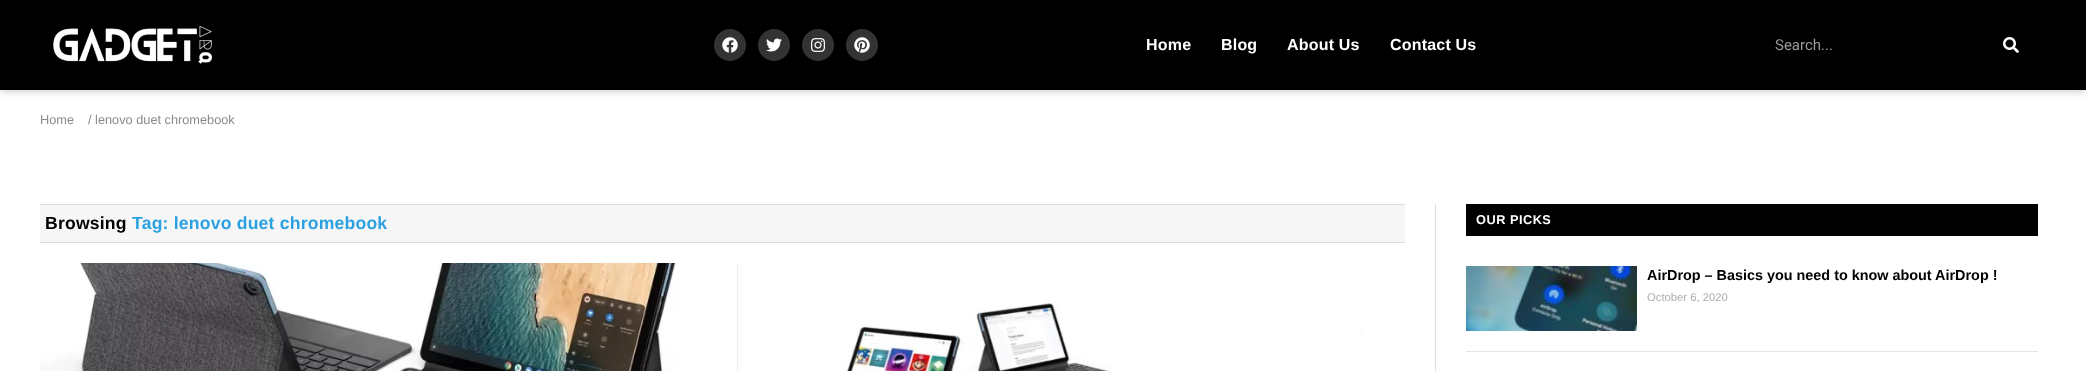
async function draw(canvas) {
  canvas.width = 2086
  canvas.height = 371
  const ctx = canvas.getContext('2d')
  ctx.miterLimit = 4
  ctx.fontKerning = 'normal'
  async function loadImage(src) {
    const img = new Image()
    img.src = src
    await img.decode()
    return img
  }

  ctx.fillStyle = '#fff'
  ctx.fillRect(0, 0, 2086, 371)
  ctx.fillStyle = '#77777780'
  ctx.filter = 'blur(5px)'
  ctx.beginPath()
  ctx.rect(0, 0, 2086, 90)
  ctx.fill()
  ctx.filter = 'none'
  ctx.fillStyle = '#000'
  ctx.fillRect(0, 0, 2086, 90)
  ctx.drawImage(await loadImage('image0.png'), 53, 25, 159, 39)
  ctx.fillStyle = '#333'
  ctx.beginPath()
  ctx.arc(730, 45, 16, 0, 2 * Math.PI)
  ctx.fill()
  ctx.drawImage(await loadImage('image1.png'), 722, 37, 16, 16)
  ctx.beginPath()
  ctx.arc(774, 45, 16, 0, 2 * Math.PI)
  ctx.fill()
  ctx.drawImage(await loadImage('image2.png'), 766, 38, 16, 14)
  ctx.beginPath()
  ctx.arc(818, 45, 16, 0, 2 * Math.PI)
  ctx.fill()
  ctx.drawImage(await loadImage('image3.png'), 811, 38, 14, 14)
  ctx.beginPath()
  ctx.arc(862, 45, 16, 0, 2 * Math.PI)
  ctx.fill()
  ctx.drawImage(await loadImage('image4.png'), 854, 37, 16, 16)
  ctx.letterSpacing = '0.2px'
  ctx.font = 'bold 16px Liberation Sans'
  ctx.fillStyle = '#fff'
  ctx.fillText('Home', 1146, 50)
  ctx.fillText('Blog', 1221, 50)
  ctx.fillText('About Us', 1287, 50)
  ctx.fillText('Contact Us', 1390, 50)
  ctx.letterSpacing = '0px'
  ctx.font = '15px Roboto'
  ctx.fillStyle = '#999'
  ctx.fillText('Search...', 1775, 50)
  ctx.drawImage(await loadImage('image5.png'), 2003, 37, 16, 16)
  ctx.font = '12.75px Liberation Sans'
  ctx.fillStyle = '#8a8a8a'
  ctx.fillText('Home', 40, 124)
  ctx.fillText('/ lenovo duet chromebook', 88, 124)
  ctx.fillStyle = '#ddd'
  ctx.fillRect(1435, 204, 1, 167)
  ctx.fillStyle = '#f6f6f6'
  ctx.fillRect(40, 205, 1365, 37)
  ctx.fillStyle = '#ddd'
  ctx.fillRect(40, 204, 1365, 1)
  ctx.fillRect(40, 242, 1365, 1)
  ctx.letterSpacing = '0.2px'
  ctx.font = 'bold 17.6px Liberation Sans'
  ctx.fillStyle = '#000'
  ctx.fillText('Browsing', 45, 229)
  ctx.fillStyle = '#2ba1e2'
  ctx.fillText('Tag: lenovo duet chromebook', 132, 229)
  ctx.drawImage(await loadImage('image6.png'), 40, 263, 636, 108)
  ctx.drawImage(await loadImage('image7.png'), 737, 263, 633, 108)
  ctx.fillStyle = '#000'
  ctx.fillRect(1466, 204, 572, 32)
  ctx.letterSpacing = '0.5px'
  ctx.font = 'bold 12.75px Liberation Sans'
  ctx.fillStyle = '#fff'
  ctx.fillText('OUR PICKS', 1476, 224)
  ctx.fillStyle = '#e6e6e6'
  ctx.fillRect(1466, 351, 572, 1)
  ctx.drawImage(await loadImage('image8.png'), 1466, 266, 171, 65)
  ctx.letterSpacing = '0px'
  ctx.font = 'bold 14.4px Liberation Sans'
  ctx.fillStyle = '#000'
  ctx.fillText('AirDrop – Basics you need to know about AirDrop !', 1647, 280)
  ctx.font = '11.25px Liberation Sans'
  ctx.fillStyle = '#adadad'
  ctx.fillText('October 6, 2020', 1647, 301)
}

draw(document.querySelector('canvas'))
